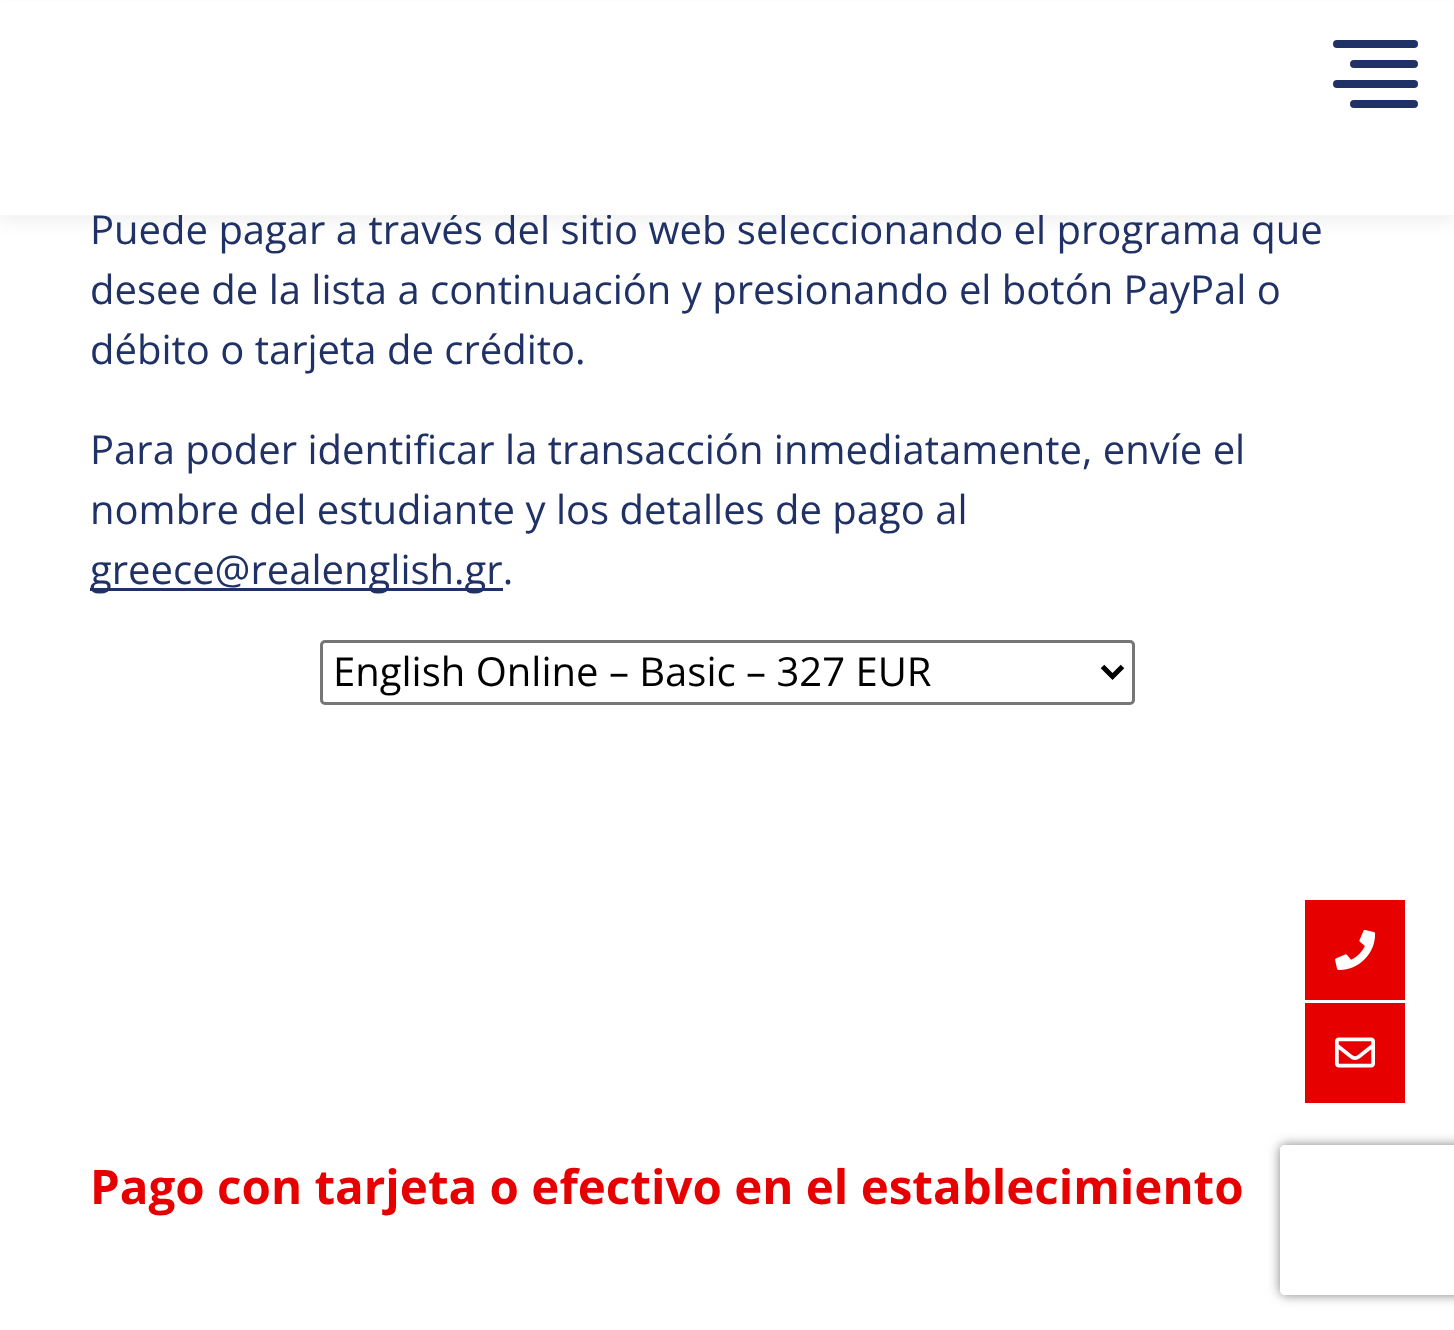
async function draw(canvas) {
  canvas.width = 1454
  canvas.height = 1330
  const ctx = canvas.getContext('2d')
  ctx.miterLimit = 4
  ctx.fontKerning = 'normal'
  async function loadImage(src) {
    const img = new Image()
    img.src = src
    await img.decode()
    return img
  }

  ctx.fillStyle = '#fff'
  ctx.fillRect(0, 0, 1454, 1330)
  ctx.fillStyle = '#0000000d'
  ctx.filter = 'blur(7.5px)'
  ctx.beginPath()
  ctx.rect(0, 8, 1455, 215)
  ctx.fill()
  ctx.filter = 'none'
  ctx.font = '40px Open Sans'
  ctx.fillStyle = '#1f3165'
  ctx.fillText('Puede pagar a través del sitio web seleccionando el programa que', 90, 244)
  ctx.fillStyle = '#fff'
  ctx.fillRect(0, 2, 1454, 213)
  ctx.fillStyle = '#1f3165'
  ctx.beginPath()
  ctx.roundRect(1333, 40, 85, 8, 4)
  ctx.fill()
  ctx.beginPath()
  ctx.roundRect(1350, 60, 68, 8, 4)
  ctx.fill()
  ctx.beginPath()
  ctx.roundRect(1333, 80, 85, 8, 4)
  ctx.fill()
  ctx.beginPath()
  ctx.roundRect(1350, 100, 68, 8, 4)
  ctx.fill()
  ctx.fillText('desee de la lista a continuación y presionando el botón PayPal o', 90, 304)
  ctx.fillText('débito o tarjeta de crédito.', 90, 364)
  ctx.fillText('Para poder identificar la transacción inmediatamente, envíe el', 90, 464)
  ctx.fillText('nombre del estudiante y los detalles de pago al', 90, 524)
  ctx.fillRect(90, 588, 413, 3)
  ctx.fillText('greece@realenglish.gr.', 90, 584)
  ctx.beginPath()
  ctx.roundRect(321.5, 641.5, 812, 62, 3.5)
  ctx.strokeStyle = '#767676'
  ctx.lineWidth = 3
  ctx.stroke()
  ctx.beginPath()
  ctx.moveTo(1102.5, 666.5)
  ctx.lineTo(1112.5, 676.5)
  ctx.lineTo(1122.5, 666.5)
  ctx.strokeStyle = '#000'
  ctx.lineWidth = 5
  ctx.stroke()
  ctx.fillStyle = '#000'
  ctx.fillText('English Online – Basic – 327 EUR', 333, 686)
  ctx.font = 'bold 47.5px Open Sans'
  ctx.fillStyle = '#e60000'
  ctx.fillText('Pago con tarjeta o efectivo en el establecimiento', 90, 1204)
  ctx.fillRect(1305, 900, 100, 100)
  ctx.drawImage(await loadImage('image0.png'), 1335, 930, 41, 40)
  ctx.fillRect(1305, 1003, 100, 100)
  ctx.drawImage(await loadImage('image1.png'), 1335, 1037, 40, 31)
  ctx.save()
  ctx.beginPath()
  ctx.moveTo(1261, 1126)
  ctx.lineTo(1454, 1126)
  ctx.lineTo(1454, 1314)
  ctx.lineTo(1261, 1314)
  ctx.closePath()
  ctx.moveTo(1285, 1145)
  ctx.lineTo(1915, 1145)
  ctx.bezierCurveTo(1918, 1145, 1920, 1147, 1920, 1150)
  ctx.lineTo(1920, 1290)
  ctx.bezierCurveTo(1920, 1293, 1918, 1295, 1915, 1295)
  ctx.lineTo(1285, 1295)
  ctx.bezierCurveTo(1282, 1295, 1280, 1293, 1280, 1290)
  ctx.lineTo(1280, 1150)
  ctx.bezierCurveTo(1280, 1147, 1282, 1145, 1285, 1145)
  ctx.closePath()
  ctx.clip('evenodd')
  ctx.fillStyle = '#808080'
  ctx.filter = 'blur(6px)'
  ctx.beginPath()
  ctx.roundRect(1280, 1145, 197, 150, 5)
  ctx.fill()
  ctx.filter = 'none'
  ctx.restore()
}

draw(document.querySelector('canvas'))
